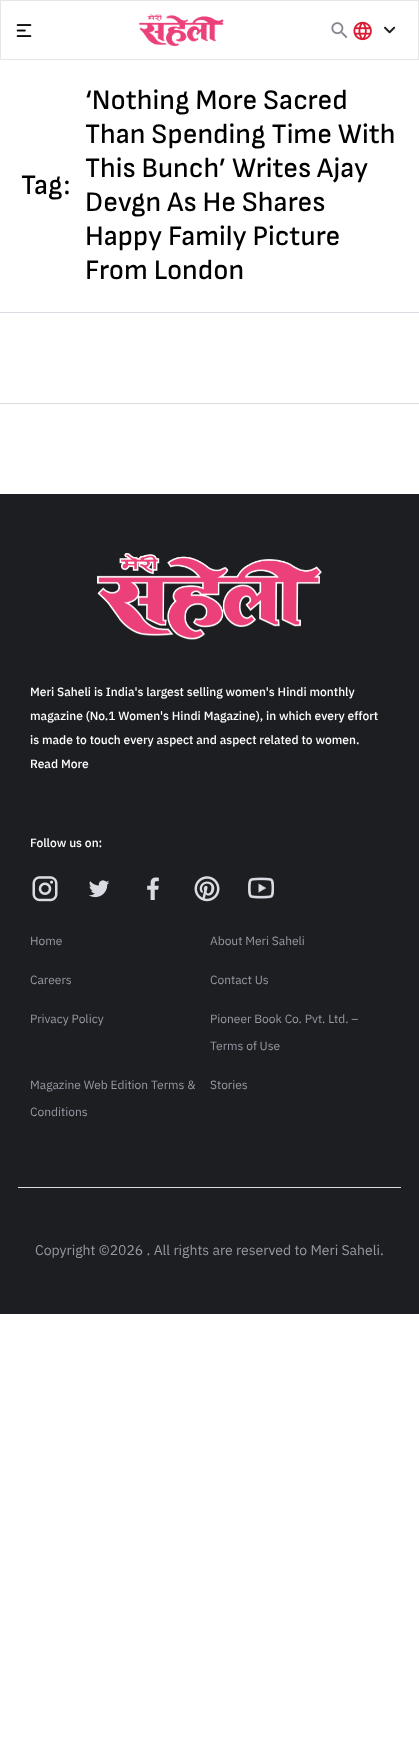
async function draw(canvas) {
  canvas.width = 419
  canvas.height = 1755
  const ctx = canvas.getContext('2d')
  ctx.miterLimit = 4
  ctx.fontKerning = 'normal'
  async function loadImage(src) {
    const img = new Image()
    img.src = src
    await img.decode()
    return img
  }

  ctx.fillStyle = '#fff'
  ctx.fillRect(0, 0, 419, 1755)
  ctx.strokeStyle = '#e6e6e6'
  ctx.strokeRect(0.5, 0.5, 418, 59)
  ctx.drawImage(await loadImage('image0.png'), 16, 24, 16, 13)
  ctx.drawImage(await loadImage('image1.png'), 138, 14, 86, 33)
  ctx.drawImage(await loadImage('image2.png'), 331, 22, 17, 17)
  ctx.drawImage(await loadImage('image3.png'), 353, 21, 19, 20)
  ctx.drawImage(await loadImage('image4.png'), 384, 26, 12, 8)
  ctx.fillStyle = '#dbdbe3'
  ctx.fillRect(0, 312, 419, 1)
  ctx.font = '500 28.25px Sofia Sans'
  ctx.fillStyle = '#000'
  ctx.fillText('Tag:', 21, 194)
  ctx.fillText('‘Nothing More Sacred', 85, 109)
  ctx.fillText('Than Spending Time With', 85, 143)
  ctx.fillText('This Bunch’ Writes Ajay', 85, 177)
  ctx.fillText('Devgn As He Shares', 85, 211)
  ctx.fillText('Happy Family Picture', 85, 245)
  ctx.fillText('From London', 85, 279)
  ctx.fillStyle = '#dbdbe3'
  ctx.fillRect(0, 403, 419, 1)
  ctx.fillStyle = '#1d1e22'
  ctx.fillRect(0, 494, 419, 820)
  ctx.fillStyle = '#dbdbe3'
  ctx.fillRect(18, 1187, 383, 1)
  ctx.drawImage(await loadImage('image5.png'), 97, 553, 225, 87)
  ctx.font = '500 12px IBM Plex Sans KR'
  ctx.fillStyle = '#fff'
  ctx.fillText('Meri Saheli is India\'s largest selling women\'s Hindi monthly', 30, 696)
  ctx.fillText('magazine (No.1 Women\'s Hindi Magazine), in which every effort', 30, 720)
  ctx.fillText('is made to touch every aspect and aspect related to women.', 30, 744)
  ctx.fillText('Read More', 30, 768)
  ctx.fillText('Follow us on:', 30, 847)
  ctx.drawImage(await loadImage('image6.png'), 32, 876, 26, 26)
  ctx.drawImage(await loadImage('image7.png'), 88, 880, 22, 18)
  ctx.drawImage(await loadImage('image8.png'), 147, 877, 12, 23)
  ctx.drawImage(await loadImage('image9.png'), 194, 876, 26, 26)
  ctx.drawImage(await loadImage('image10.png'), 248, 877, 26, 22)
  ctx.font = '12px IBM Plex Sans KR'
  ctx.fillStyle = '#9798a3'
  ctx.fillText('Home', 30, 945)
  ctx.fillText('About Meri Saheli', 210, 945)
  ctx.fillText('Careers', 30, 984)
  ctx.fillText('Contact Us', 210, 984)
  ctx.fillText('Privacy Policy', 30, 1023)
  ctx.fillText('Pioneer Book Co. Pvt. Ltd. –', 210, 1023)
  ctx.fillText('Terms of Use', 210, 1050)
  ctx.fillText('Magazine Web Edition Terms &', 30, 1089)
  ctx.fillText('Conditions', 30, 1116)
  ctx.fillText('Stories', 210, 1089)
  ctx.font = '14px IBM Plex Sans KR'
  ctx.fillText('Copyright ©2026 . All rights are reserved to Meri Saheli.', 35, 1255)
}

draw(document.querySelector('canvas'))
